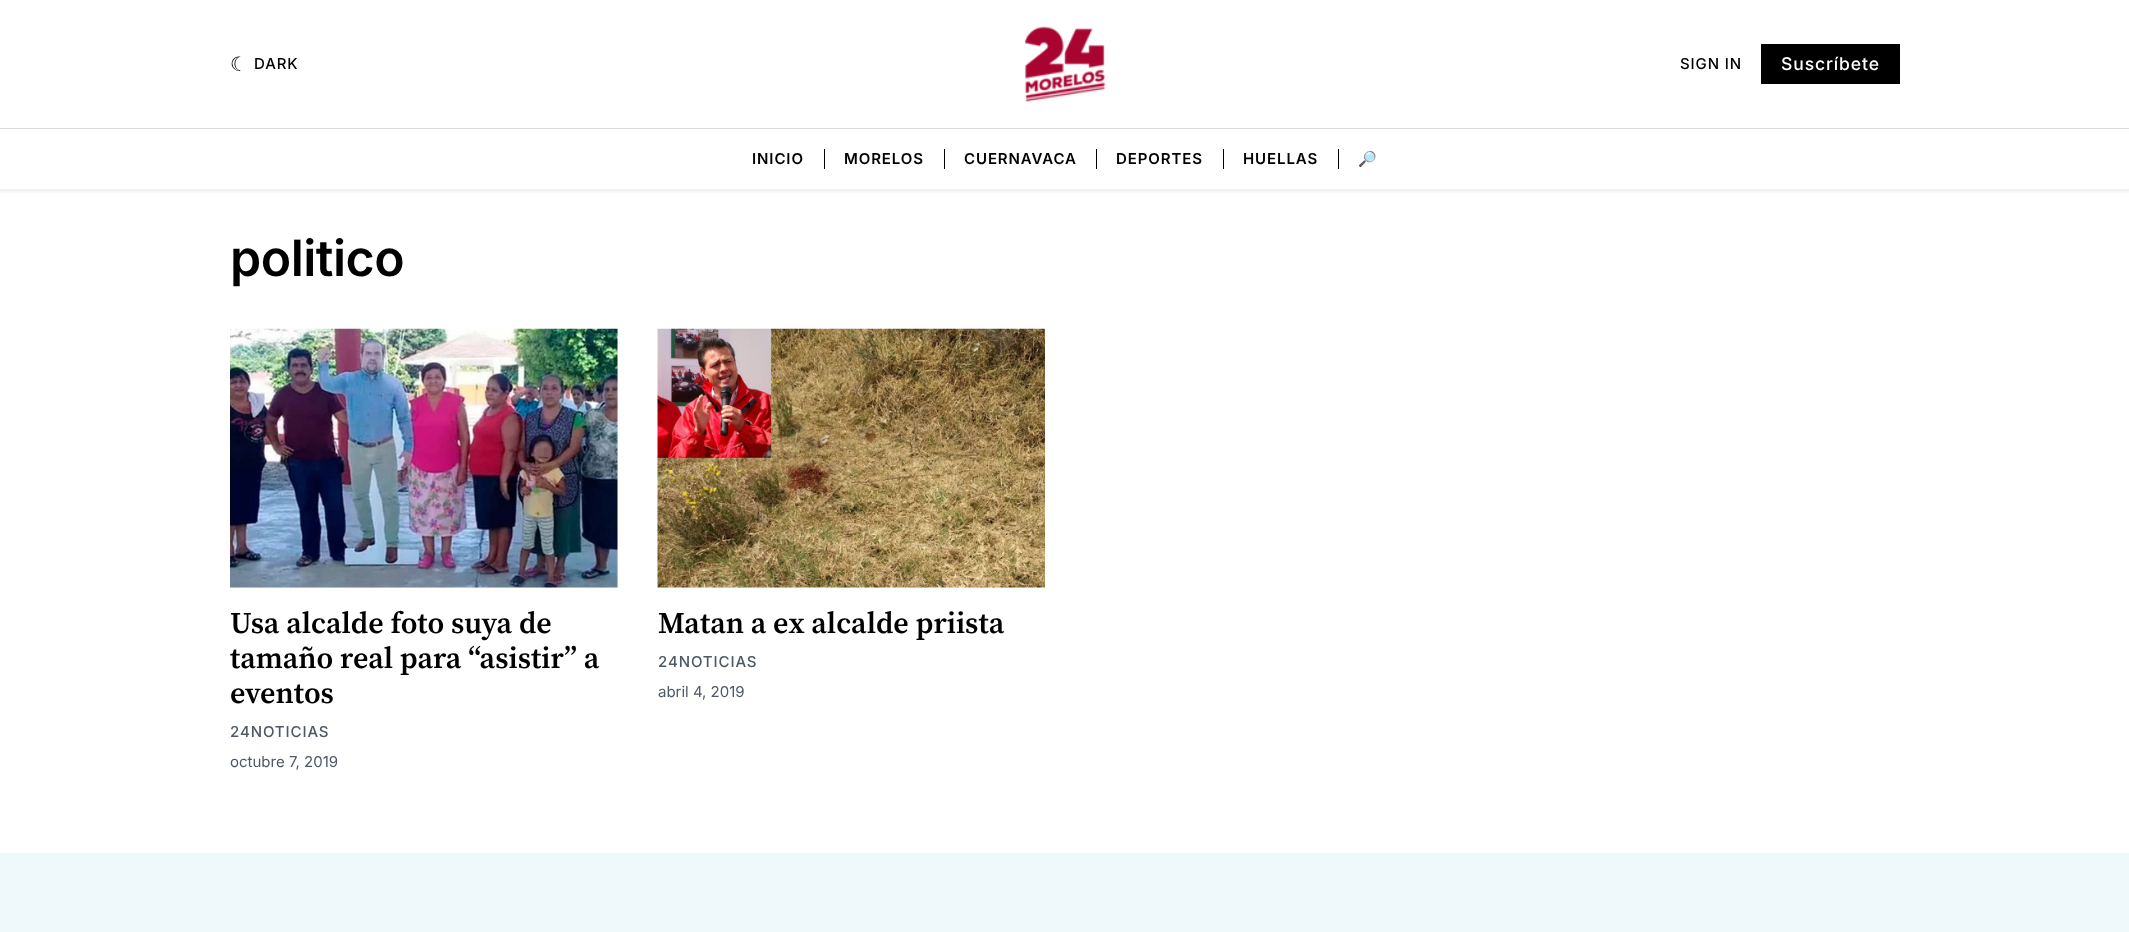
async function draw(canvas) {
  canvas.width = 2129
  canvas.height = 932
  const ctx = canvas.getContext('2d')
  ctx.miterLimit = 4
  ctx.fontKerning = 'normal'
  async function loadImage(src) {
    const img = new Image()
    img.src = src
    await img.decode()
    return img
  }

  ctx.fillStyle = '#fff'
  ctx.fillRect(0, 0, 2129, 932)
  ctx.save()
  ctx.beginPath()
  ctx.rect(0, 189, 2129, 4)
  ctx.clip()
  ctx.fillStyle = '#00000014'
  ctx.filter = 'blur(2.5px)'
  ctx.beginPath()
  ctx.rect(-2, -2, 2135, 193)
  ctx.fill()
  ctx.filter = 'none'
  ctx.restore()
  ctx.fillStyle = '#d9d9d9'
  ctx.fillRect(0, 128, 2129, 1)
  ctx.letterSpacing = '0.9px'
  ctx.font = '20px DejaVu Sans'
  ctx.fillStyle = '#000'
  ctx.fillText('☾', 230, 71)
  ctx.font = '500 15px Inter'
  ctx.fillText('DARK', 254, 69)
  ctx.drawImage(await loadImage('image0.png'), 1024, 26, 82, 76)
  ctx.fillText('SIGN IN', 1680, 69)
  ctx.fillRect(1761, 44, 139, 40)
  ctx.font = '500 17.5px Inter'
  ctx.fillStyle = '#fff'
  ctx.fillText('Suscríbete', 1781, 70)
  ctx.font = '600 15px Inter'
  ctx.fillStyle = '#000'
  ctx.fillText('INICIO', 752, 164)
  ctx.fillRect(824, 149, 1, 20)
  ctx.fillText('MORELOS', 844, 164)
  ctx.fillRect(944, 149, 1, 20)
  ctx.fillText('CUERNAVACA', 964, 164)
  ctx.fillRect(1096, 149, 1, 20)
  ctx.fillText('DEPORTES', 1116, 164)
  ctx.fillRect(1223, 149, 1, 20)
  ctx.fillText('HUELLAS', 1243, 164)
  ctx.fillRect(1338, 149, 1, 20)
  ctx.font = 'bold 15px Noto Color Emoji'
  ctx.fillText('🔎', 1358, 164)
  ctx.letterSpacing = '-0.5px'
  ctx.font = '600 50px Inter'
  ctx.fillText('politico', 230, 276)
  ctx.fillStyle = '#eff8fa'
  ctx.fillRect(230, 329, 388, 259)
  ctx.drawImage(await loadImage('image1.png'), 230, 328, 388, 260)
  ctx.letterSpacing = '0px'
  ctx.font = '600 30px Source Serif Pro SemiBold'
  ctx.fillStyle = '#000'
  ctx.fillText('Usa alcalde foto suya de', 230, 633)
  ctx.fillText('tamaño real para “asistir” a', 230, 668)
  ctx.fillText('eventos', 230, 703)
  ctx.letterSpacing = '0.9px'
  ctx.font = '500 15px Inter'
  ctx.fillStyle = '#4e5965'
  ctx.fillText('24NOTICIAS', 230, 737)
  ctx.letterSpacing = '0px'
  ctx.font = '15px Inter'
  ctx.fillText('octubre 7, 2019', 230, 767)
  ctx.fillStyle = '#eff8fa'
  ctx.fillRect(658, 587, 387, 1)
  ctx.drawImage(await loadImage('image2.png'), 657, 328, 388, 260)
  ctx.font = '600 30px Source Serif Pro SemiBold'
  ctx.fillStyle = '#000'
  ctx.fillText('Matan a ex alcalde priista', 658, 633)
  ctx.letterSpacing = '0.9px'
  ctx.font = '500 15px Inter'
  ctx.fillStyle = '#4e5965'
  ctx.fillText('24NOTICIAS', 658, 667)
  ctx.letterSpacing = '0px'
  ctx.font = '15px Inter'
  ctx.fillText('abril 4, 2019', 658, 697)
  ctx.fillStyle = '#eff8fa'
  ctx.fillRect(0, 853, 2129, 79)
}

draw(document.querySelector('canvas'))
